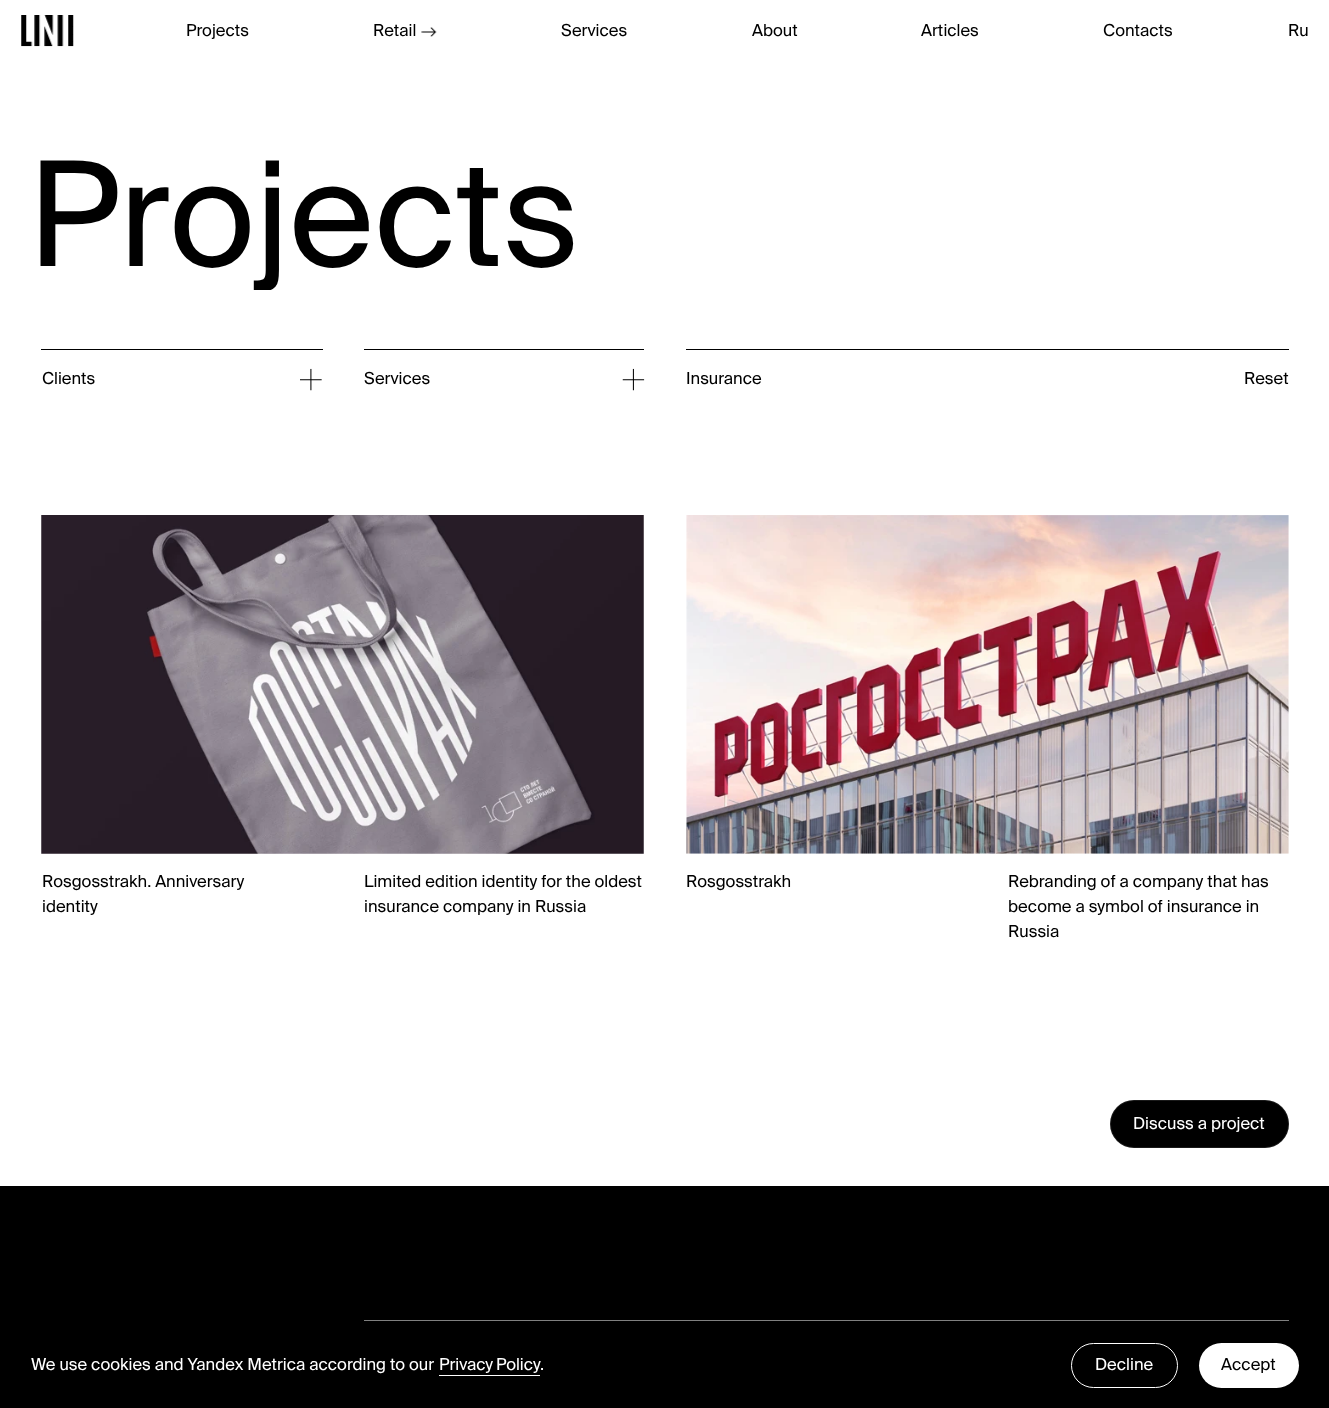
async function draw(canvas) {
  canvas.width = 1329
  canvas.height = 1408
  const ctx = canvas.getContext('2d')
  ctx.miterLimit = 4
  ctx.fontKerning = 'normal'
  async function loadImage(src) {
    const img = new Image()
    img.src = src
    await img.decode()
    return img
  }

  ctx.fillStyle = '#000'
  ctx.fillRect(0, 0, 1329, 1408)
  ctx.fillStyle = '#fff'
  ctx.fillRect(0, 0, 1329, 1186)
  ctx.drawImage(await loadImage('image0.png'), 21, 15, 53, 32)
  ctx.font = '16.6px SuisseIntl'
  ctx.fillStyle = '#000'
  ctx.fillText('Projects', 186, 36)
  ctx.fillText('Retail', 373, 36)
  ctx.drawImage(await loadImage('image1.png'), 421, 27, 16, 10)
  ctx.fillText('Services', 561, 36)
  ctx.fillText('About', 752, 36)
  ctx.fillText('Articles', 921, 36)
  ctx.fillText('Contacts', 1103, 36)
  ctx.fillText('Ru', 1288, 36)
  ctx.save()
  ctx.beginPath()
  ctx.rect(28, 145, 1261, 145)
  ctx.clip()
  ctx.font = '145.5px SuisseIntl'
  ctx.fillText('Projects', 28, 266)
  ctx.restore()
  ctx.fillRect(41, 349, 282, 1)
  ctx.fillText('Clients', 42, 384)
  ctx.drawImage(await loadImage('image2.png'), 300, 368, 22, 23)
  ctx.fillRect(364, 349, 280, 1)
  ctx.fillText('Services', 364, 384)
  ctx.drawImage(await loadImage('image3.png'), 622, 368, 23, 23)
  ctx.fillRect(686, 349, 603, 1)
  ctx.fillText('Insurance', 686, 384)
  ctx.fillText('Reset', 1244, 384)
  ctx.drawImage(await loadImage('image4.png'), 41, 515, 603, 339)
  ctx.fillText('Rosgosstrakh. Anniversary', 42, 887)
  ctx.fillText('identity', 42, 912)
  ctx.fillText('Limited edition identity for the oldest', 364, 887)
  ctx.fillText('insurance company in Russia', 364, 912)
  ctx.drawImage(await loadImage('image5.png'), 686, 515, 603, 339)
  ctx.fillText('Rosgosstrakh', 686, 887)
  ctx.fillText('Rebranding of a company that has', 1008, 887)
  ctx.fillText('become a symbol of insurance in', 1008, 912)
  ctx.fillText('Russia', 1008, 937)
  ctx.beginPath()
  ctx.roundRect(1110, 1100, 179, 48, 24)
  ctx.fill()
  ctx.beginPath()
  ctx.roundRect(1110.5, 1100.5, 178, 47, 23.5)
  ctx.strokeStyle = '#ffffff1a'
  ctx.stroke()
  ctx.fillStyle = '#fff'
  ctx.fillText('Discuss a project', 1133, 1129)
  ctx.fillStyle = '#808080'
  ctx.fillRect(364, 1320, 925, 1)
  ctx.fillStyle = '#fff'
  ctx.fillText('We use cookies and Yandex Metrica according to our', 31, 1370)
  ctx.wordSpacing = '-1px'
  ctx.fillText('Privacy Policy', 439, 1370)
  ctx.fillRect(439, 1375, 101, 1)
  ctx.wordSpacing = '0px'
  ctx.fillText('.', 540, 1370)
  ctx.beginPath()
  ctx.roundRect(1071.5, 1343.5, 106, 44, 22)
  ctx.strokeStyle = '#fff'
  ctx.stroke()
  ctx.fillText('Decline', 1095, 1370)
  ctx.beginPath()
  ctx.roundRect(1199, 1343, 100, 45, 22.5)
  ctx.fill()
  ctx.fillStyle = '#000'
  ctx.fillText('Accept', 1221, 1370)
}

draw(document.querySelector('canvas'))
